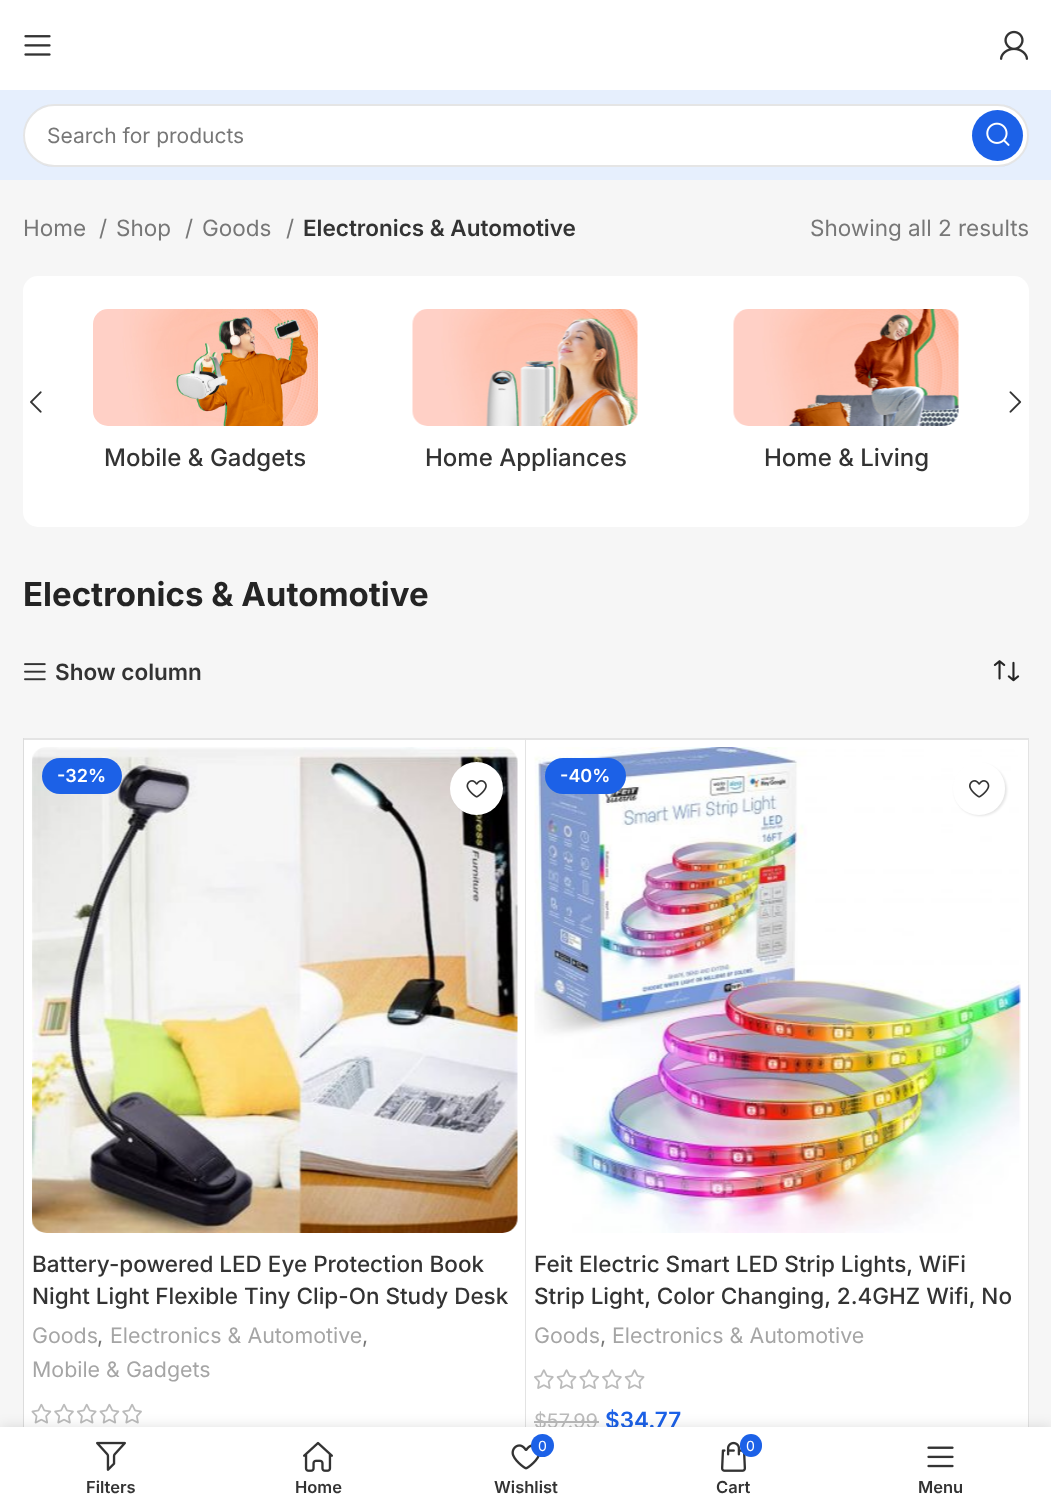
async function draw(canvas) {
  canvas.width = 1051
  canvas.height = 1508
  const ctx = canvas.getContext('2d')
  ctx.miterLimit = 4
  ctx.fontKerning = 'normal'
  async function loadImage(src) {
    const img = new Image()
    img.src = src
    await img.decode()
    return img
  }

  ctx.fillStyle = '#fff'
  ctx.fillRect(0, 0, 1051, 1508)
  ctx.drawImage(await loadImage('image0.png'), 24, 35, 27, 21)
  ctx.drawImage(await loadImage('image1.png'), 999, 30, 30, 30)
  ctx.fillStyle = '#e6effd'
  ctx.fillRect(0, 90, 1051, 90)
  ctx.fillStyle = '#fff'
  ctx.beginPath()
  ctx.roundRect(23, 104, 1006, 63, 31.5)
  ctx.fill()
  ctx.beginPath()
  ctx.roundRect(24, 105, 1004, 61, 30.5)
  ctx.strokeStyle = '#0000001a'
  ctx.lineWidth = 2
  ctx.stroke()
  ctx.font = '21px Inter'
  ctx.fillStyle = '#777'
  ctx.fillText('Search for products', 47, 143)
  ctx.fillStyle = '#1c61e7'
  ctx.beginPath()
  ctx.arc(997.5, 135.5, 25.5, 0, 2 * Math.PI)
  ctx.fill()
  ctx.drawImage(await loadImage('image2.png'), 986, 122, 24, 24)
  ctx.fillStyle = '#f6f6f6'
  ctx.fillRect(0, 180, 1051, 1247)
  ctx.font = '22.5px Inter'
  ctx.fillStyle = '#777'
  ctx.fillText('Home', 23, 236)
  ctx.fillText('/', 99, 236)
  ctx.fillText('Shop', 116, 236)
  ctx.fillText('/', 185, 236)
  ctx.fillText('Goods', 202, 236)
  ctx.fillText('/', 286, 236)
  ctx.font = '600 22.5px Inter'
  ctx.fillStyle = '#333'
  ctx.fillText('Electronics & Automotive', 303, 236)
  ctx.font = '22.5px Inter'
  ctx.fillStyle = '#777'
  ctx.fillText('Showing all 2 results', 810, 236)
  ctx.fillStyle = '#fff'
  ctx.beginPath()
  ctx.roundRect(23, 276, 1006, 251, 15)
  ctx.fill()
  ctx.drawImage(await loadImage('image3.png'), 30, 391, 12, 22)
  ctx.drawImage(await loadImage('image4.png'), 1009, 391, 13, 22)
  ctx.drawImage(await loadImage('image5.png'), 93, 309, 225, 117)
  ctx.font = '500 24px Inter'
  ctx.fillStyle = '#333'
  ctx.fillText('Mobile & Gadgets', 104, 466)
  ctx.drawImage(await loadImage('image6.png'), 412, 309, 226, 117)
  ctx.fillText('Home Appliances', 425, 466)
  ctx.drawImage(await loadImage('image7.png'), 733, 309, 226, 117)
  ctx.fillText('Home & Living', 764, 466)
  ctx.font = 'bold 33px Inter'
  ctx.fillStyle = '#242424'
  ctx.fillText('Electronics & Automotive', 23, 606)
  ctx.drawImage(await loadImage('image8.png'), 24, 663, 22, 18)
  ctx.font = '600 22.5px Inter'
  ctx.fillStyle = '#333'
  ctx.fillText('Show column', 55, 680)
  ctx.drawImage(await loadImage('image9.png'), 993, 660, 27, 22)
  ctx.fillStyle = '#dcdcdc'
  ctx.fillRect(23, 738, 1, 689)
  ctx.fillStyle = '#fff'
  ctx.fillRect(24, 738, 1005, 689)
  ctx.fillStyle = '#e4e4e4'
  ctx.beginPath()
  ctx.moveTo(24, 738)
  ctx.lineTo(526, 738)
  ctx.lineTo(525, 740)
  ctx.lineTo(24, 740)
  ctx.closePath()
  ctx.fill()
  ctx.fillStyle = '#0000001c'
  ctx.beginPath()
  ctx.moveTo(526, 738)
  ctx.lineTo(526, 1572)
  ctx.lineTo(525, 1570)
  ctx.lineTo(525, 740)
  ctx.closePath()
  ctx.fill()
  ctx.drawImage(await loadImage('image10.png'), 32, 747, 486, 486)
  ctx.fillStyle = '#1c61e7'
  ctx.beginPath()
  ctx.roundRect(42, 758, 80, 36, 18)
  ctx.fill()
  ctx.font = '600 18px Inter'
  ctx.fillStyle = '#fff'
  ctx.fillText('-32%', 57, 782)
  ctx.fillStyle = '#0000001a'
  ctx.filter = 'blur(1px)'
  ctx.beginPath()
  ctx.roundRect(452, 764, 52, 52, 26)
  ctx.fill()
  ctx.filter = 'none'
  ctx.fillStyle = '#fff'
  ctx.beginPath()
  ctx.arc(476.5, 788.5, 26.5, 0, 2 * Math.PI)
  ctx.fill()
  ctx.drawImage(await loadImage('image11.png'), 466, 780, 21, 18)
  ctx.font = '500 22.5px Inter'
  ctx.fillStyle = '#333'
  ctx.fillText('Battery-powered LED Eye Protection Book', 32, 1272)
  ctx.fillText('Night Light Flexible Tiny Clip-On Study Desk', 32, 1304)
  ctx.font = '21.4px Inter'
  ctx.fillStyle = '#a5a5a5'
  ctx.fillText('Goods', 32, 1343)
  ctx.fillStyle = '#777'
  ctx.fillText(',', 97, 1343)
  ctx.fillStyle = '#a5a5a5'
  ctx.fillText('Electronics & Automotive', 110, 1343)
  ctx.fillStyle = '#777'
  ctx.fillText(',', 362, 1343)
  ctx.fillStyle = '#a5a5a5'
  ctx.fillText('Mobile & Gadgets', 32, 1377)
  ctx.drawImage(await loadImage('image12.png'), 31, 1403, 111, 21)
  ctx.fillStyle = '#e4e4e4'
  ctx.beginPath()
  ctx.moveTo(526, 738)
  ctx.lineTo(1029, 738)
  ctx.lineTo(1028, 740)
  ctx.lineTo(526, 740)
  ctx.closePath()
  ctx.fill()
  ctx.fillStyle = '#0000001c'
  ctx.beginPath()
  ctx.moveTo(1029, 738)
  ctx.lineTo(1029, 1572)
  ctx.lineTo(1028, 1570)
  ctx.lineTo(1028, 740)
  ctx.closePath()
  ctx.fill()
  ctx.drawImage(await loadImage('image13.png'), 534, 747, 487, 486)
  ctx.fillStyle = '#1c61e7'
  ctx.beginPath()
  ctx.roundRect(545, 758, 81, 36, 18)
  ctx.fill()
  ctx.font = '600 18px Inter'
  ctx.fillStyle = '#fff'
  ctx.fillText('-40%', 560, 782)
  ctx.fillStyle = '#0000001a'
  ctx.filter = 'blur(1px)'
  ctx.beginPath()
  ctx.roundRect(954, 764, 53, 52, 26)
  ctx.fill()
  ctx.filter = 'none'
  ctx.fillStyle = '#fff'
  ctx.beginPath()
  ctx.roundRect(953, 762, 52, 53, 26)
  ctx.fill()
  ctx.drawImage(await loadImage('image14.png'), 969, 780, 21, 18)
  ctx.font = '500 22.5px Inter'
  ctx.fillStyle = '#333'
  ctx.fillText('Feit Electric Smart LED Strip Lights, WiFi', 534, 1272)
  ctx.fillText('Strip Light, Color Changing, 2.4GHZ Wifi, No', 534, 1304)
  ctx.font = '21.4px Inter'
  ctx.fillStyle = '#a5a5a5'
  ctx.fillText('Goods', 534, 1343)
  ctx.fillStyle = '#777'
  ctx.fillText(',', 600, 1343)
  ctx.fillStyle = '#a5a5a5'
  ctx.fillText('Electronics & Automotive', 612, 1343)
  ctx.drawImage(await loadImage('image15.png'), 534, 1369, 111, 20)
  ctx.font = '20px Inter'
  ctx.fillStyle = '#bbb'
  ctx.fillText('$57.99', 534, 1428)
  ctx.fillRect(534, 1421, 65, 2)
  ctx.font = '600 22.5px Inter'
  ctx.fillStyle = '#1c61e7'
  ctx.fillText('$34.77', 605, 1428)
  ctx.fillStyle = '#0000001f'
  ctx.filter = 'blur(7px)'
  ctx.beginPath()
  ctx.rect(0, 1427, 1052, 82)
  ctx.fill()
  ctx.filter = 'none'
  ctx.fillStyle = '#fff'
  ctx.fillRect(0, 1427, 1051, 81)
  ctx.drawImage(await loadImage('image16.png'), 96, 1441, 30, 30)
  ctx.font = '600 16.5px Inter'
  ctx.fillStyle = '#333'
  ctx.fillText('Filters', 86, 1493)
  ctx.drawImage(await loadImage('image17.png'), 303, 1441, 30, 31)
  ctx.fillText('Home', 295, 1493)
  ctx.drawImage(await loadImage('image18.png'), 511, 1444, 29, 26)
  ctx.fillStyle = '#1c61e7'
  ctx.beginPath()
  ctx.arc(542.5, 1445.5, 11.5, 0, 2 * Math.PI)
  ctx.fill()
  ctx.font = '14px Inter'
  ctx.fillStyle = '#fff'
  ctx.fillText('0', 538, 1451)
  ctx.font = '600 16.5px Inter'
  ctx.fillStyle = '#333'
  ctx.fillText('Wishlist', 494, 1493)
  ctx.drawImage(await loadImage('image19.png'), 721, 1441, 25, 31)
  ctx.fillStyle = '#1c61e7'
  ctx.beginPath()
  ctx.roundRect(740, 1434, 22, 23, 11)
  ctx.fill()
  ctx.font = '14px Inter'
  ctx.fillStyle = '#fff'
  ctx.fillText('0', 746, 1451)
  ctx.font = '600 16.5px Inter'
  ctx.fillStyle = '#333'
  ctx.fillText('Cart', 716, 1493)
  ctx.drawImage(await loadImage('image20.png'), 927, 1446, 27, 22)
  ctx.fillText('Menu', 918, 1493)
}

draw(document.querySelector('canvas'))
